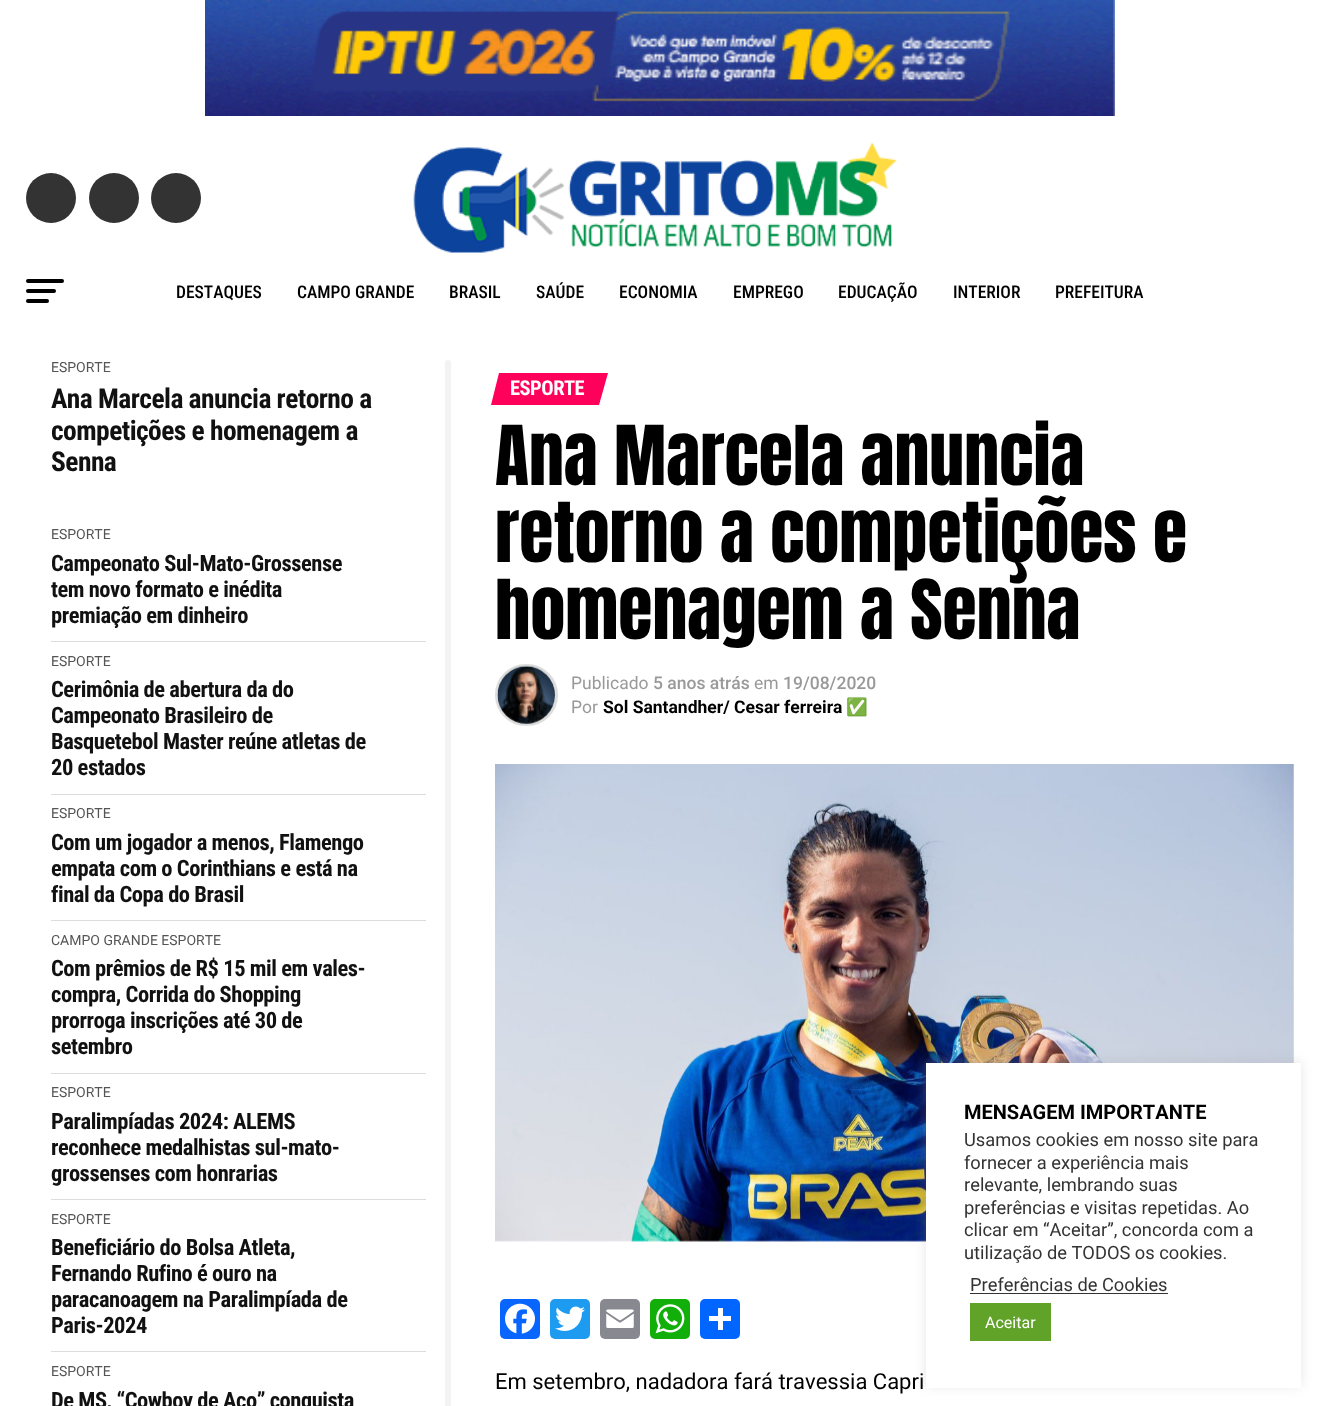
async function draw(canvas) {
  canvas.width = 1320
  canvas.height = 1406
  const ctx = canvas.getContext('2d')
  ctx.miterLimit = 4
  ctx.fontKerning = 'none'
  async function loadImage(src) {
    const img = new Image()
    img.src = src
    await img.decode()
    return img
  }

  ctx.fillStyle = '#fff'
  ctx.fillRect(0, 0, 1320, 1406)
  ctx.drawImage(await loadImage('image0.png'), 205, 0, 910, 116)
  ctx.fillStyle = '#333'
  ctx.beginPath()
  ctx.arc(51, 198, 25, 0, 2 * Math.PI)
  ctx.fill()
  ctx.beginPath()
  ctx.arc(114, 198, 25, 0, 2 * Math.PI)
  ctx.fill()
  ctx.beginPath()
  ctx.arc(176, 198, 25, 0, 2 * Math.PI)
  ctx.fill()
  ctx.drawImage(await loadImage('image1.png'), 413, 142, 484, 111)
  ctx.fillStyle = '#000'
  ctx.beginPath()
  ctx.roundRect(26, 279, 38, 4, 2)
  ctx.fill()
  ctx.beginPath()
  ctx.roundRect(26, 289, 30, 4, 2)
  ctx.fill()
  ctx.beginPath()
  ctx.roundRect(26, 299, 23, 4, 2)
  ctx.fill()
  ctx.font = '500 17.5px Roboto Condensed'
  ctx.fillText('DESTAQUES', 176, 298)
  ctx.fillText('CAMPO GRANDE', 297, 298)
  ctx.fillText('BRASIL', 449, 298)
  ctx.fillText('SAÚDE', 536, 298)
  ctx.fillText('ECONOMIA', 619, 298)
  ctx.fillText('EMPREGO', 733, 298)
  ctx.fillText('EDUCAÇÃO', 838, 298)
  ctx.fillText('INTERIOR', 953, 298)
  ctx.fillText('PREFEITURA', 1055, 298)
  ctx.font = '14px Roboto'
  ctx.fillStyle = '#555'
  ctx.fillText('ESPORTE', 51, 372)
  ctx.letterSpacing = '-0.55px'
  ctx.font = 'bold 27.5px Roboto Condensed'
  ctx.fillStyle = '#111'
  ctx.fillText('Ana Marcela anuncia retorno a', 51, 408)
  ctx.fillText('competições e homenagem a', 51, 440)
  ctx.fillText('Senna', 51, 471)
  ctx.fillStyle = '#ddd'
  ctx.fillRect(51, 641, 375, 1)
  ctx.letterSpacing = '0px'
  ctx.font = '14px Roboto'
  ctx.fillStyle = '#555'
  ctx.fillText('ESPORTE', 51, 539)
  ctx.letterSpacing = '-0.45px'
  ctx.font = 'bold 22.5px Roboto Condensed'
  ctx.fillStyle = '#111'
  ctx.fillText('Campeonato Sul-Mato-Grossense', 51, 571)
  ctx.fillText('tem novo formato e inédita', 51, 597)
  ctx.fillText('premiação em dinheiro', 51, 623)
  ctx.fillStyle = '#ddd'
  ctx.fillRect(51, 794, 375, 1)
  ctx.letterSpacing = '0px'
  ctx.font = '14px Roboto'
  ctx.fillStyle = '#555'
  ctx.fillText('ESPORTE', 51, 666)
  ctx.letterSpacing = '-0.45px'
  ctx.font = 'bold 22.5px Roboto Condensed'
  ctx.fillStyle = '#111'
  ctx.fillText('Cerimônia de abertura da do', 51, 697)
  ctx.fillText('Campeonato Brasileiro de', 51, 723)
  ctx.fillText('Basquetebol Master reúne atletas de', 51, 749)
  ctx.fillText('20 estados', 51, 775)
  ctx.fillStyle = '#ddd'
  ctx.fillRect(51, 920, 375, 1)
  ctx.letterSpacing = '0px'
  ctx.font = '14px Roboto'
  ctx.fillStyle = '#555'
  ctx.fillText('ESPORTE', 51, 818)
  ctx.letterSpacing = '-0.45px'
  ctx.font = 'bold 22.5px Roboto Condensed'
  ctx.fillStyle = '#111'
  ctx.fillText('Com um jogador a menos, Flamengo', 51, 850)
  ctx.fillText('empata com o Corinthians e está na', 51, 876)
  ctx.fillText('final da Copa do Brasil', 51, 902)
  ctx.fillStyle = '#ddd'
  ctx.fillRect(51, 1073, 375, 1)
  ctx.letterSpacing = '0px'
  ctx.font = '14px Roboto'
  ctx.fillStyle = '#555'
  ctx.fillText('CAMPO GRANDE ESPORTE', 51, 945)
  ctx.letterSpacing = '-0.45px'
  ctx.font = 'bold 22.5px Roboto Condensed'
  ctx.fillStyle = '#111'
  ctx.fillText('Com prêmios de R$ 15 mil em vales-', 51, 976)
  ctx.fillText('compra, Corrida do Shopping', 51, 1002)
  ctx.fillText('prorroga inscrições até 30 de', 51, 1028)
  ctx.fillText('setembro', 51, 1054)
  ctx.fillStyle = '#ddd'
  ctx.fillRect(51, 1199, 375, 1)
  ctx.letterSpacing = '0px'
  ctx.font = '14px Roboto'
  ctx.fillStyle = '#555'
  ctx.fillText('ESPORTE', 51, 1097)
  ctx.letterSpacing = '-0.45px'
  ctx.font = 'bold 22.5px Roboto Condensed'
  ctx.fillStyle = '#111'
  ctx.fillText('Paralimpíadas 2024: ALEMS', 51, 1129)
  ctx.fillText('reconhece medalhistas sul-mato-', 51, 1155)
  ctx.fillText('grossenses com honrarias', 51, 1181)
  ctx.fillStyle = '#ddd'
  ctx.fillRect(51, 1351, 375, 1)
  ctx.letterSpacing = '0px'
  ctx.font = '14px Roboto'
  ctx.fillStyle = '#555'
  ctx.fillText('ESPORTE', 51, 1224)
  ctx.letterSpacing = '-0.45px'
  ctx.font = 'bold 22.5px Roboto Condensed'
  ctx.fillStyle = '#111'
  ctx.fillText('Beneficiário do Bolsa Atleta,', 51, 1255)
  ctx.fillText('Fernando Rufino é ouro na', 51, 1281)
  ctx.fillText('paracanoagem na Paralimpíada de', 51, 1307)
  ctx.fillText('Paris-2024', 51, 1333)
  ctx.letterSpacing = '0px'
  ctx.font = '14px Roboto'
  ctx.fillStyle = '#555'
  ctx.fillText('ESPORTE', 51, 1376)
  ctx.letterSpacing = '-0.45px'
  ctx.font = 'bold 22.5px Roboto Condensed'
  ctx.fillStyle = '#111'
  ctx.fillText('De MS, “Cowboy de Aço” conquista', 51, 1408)
  ctx.fillStyle = '#ff005b'
  ctx.beginPath()
  ctx.moveTo(499, 373)
  ctx.lineTo(608, 373)
  ctx.lineTo(599, 405)
  ctx.lineTo(491, 405)
  ctx.closePath()
  ctx.fill()
  ctx.letterSpacing = '-0.5px'
  ctx.font = 'bold 20.5px Roboto Condensed'
  ctx.fillStyle = '#fff'
  ctx.fillText('ESPORTE', 510, 395)
  ctx.letterSpacing = '0px'
  ctx.font = '70px Anton'
  ctx.fillStyle = '#000'
  ctx.fillText('Ana Marcela anuncia', 495, 485)
  ctx.fillText('retorno a competições e', 495, 562)
  ctx.fillText('homenagem a Senna', 495, 639)
  ctx.beginPath()
  ctx.roundRect(496.5, 665.5, 60, 59, 29.5)
  ctx.strokeStyle = '#ddd'
  ctx.lineWidth = 3
  ctx.stroke()
  ctx.drawImage(await loadImage('image2.png'), 497, 665, 58, 59)
  ctx.font = '17.5px Roboto'
  ctx.fillStyle = '#999'
  ctx.fillText('Publicado', 571, 689)
  ctx.font = '500 17.5px Roboto'
  ctx.fillText('5 anos atrás', 653, 689)
  ctx.font = '17.5px Roboto'
  ctx.fillText('em', 754, 689)
  ctx.font = '500 17.5px Roboto'
  ctx.fillText('19/08/2020', 783, 689)
  ctx.font = '17.5px Roboto'
  ctx.fillText('Por', 571, 713)
  ctx.font = 'bold 17.5px Roboto'
  ctx.fillStyle = '#000'
  ctx.fillText('Sol Santandher/ Cesar ferreira', 603, 713)
  ctx.font = 'bold 17.5px Noto Color Emoji'
  ctx.fillText('✅', 846, 713)
  ctx.drawImage(await loadImage('image3.png'), 495, 764, 799, 478)
  ctx.fillStyle = '#0866ff'
  ctx.beginPath()
  ctx.roundRect(500, 1299, 40, 40, 5)
  ctx.fill()
  ctx.drawImage(await loadImage('image4.png'), 505, 1303, 30, 31)
  ctx.fillStyle = '#1d9bf0'
  ctx.beginPath()
  ctx.roundRect(550, 1299, 40, 40, 5)
  ctx.fill()
  ctx.drawImage(await loadImage('image5.png'), 555, 1306, 30, 25)
  ctx.fillStyle = '#888990'
  ctx.beginPath()
  ctx.roundRect(600, 1299, 40, 40, 5)
  ctx.fill()
  ctx.drawImage(await loadImage('image6.png'), 606, 1309, 28, 19)
  ctx.fillStyle = '#12af0a'
  ctx.beginPath()
  ctx.roundRect(650, 1299, 40, 40, 5)
  ctx.fill()
  ctx.drawImage(await loadImage('image7.png'), 655, 1304, 30, 30)
  ctx.fillStyle = '#0166ff'
  ctx.beginPath()
  ctx.roundRect(700, 1299, 40, 40, 5)
  ctx.fill()
  ctx.fillStyle = '#fff'
  ctx.fillRect(718, 1308, 5, 22)
  ctx.fillRect(709, 1316, 22, 5)
  ctx.font = '22px Roboto'
  ctx.fillStyle = '#000'
  ctx.fillText('Em setembro, nadadora fará travessia Capri', 495, 1389)
  ctx.fillStyle = '#f3f3f3'
  ctx.beginPath()
  ctx.roundRect(445, 360, 6, 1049, 3)
  ctx.fill()
  ctx.fillStyle = '#acabab4d'
  ctx.filter = 'blur(6px)'
  ctx.beginPath()
  ctx.rect(926, 1061, 375, 325)
  ctx.fill()
  ctx.filter = 'none'
  ctx.fillStyle = '#fff'
  ctx.fillRect(926, 1063, 375, 325)
  ctx.font = 'bold 20px Roboto'
  ctx.fillStyle = '#000'
  ctx.fillText('MENSAGEM IMPORTANTE', 964, 1119)
  ctx.font = '18.3px Roboto'
  ctx.fillStyle = '#333'
  ctx.fillText('Usamos cookies em nosso site para', 964, 1146)
  ctx.fillText('fornecer a experiência mais', 964, 1169)
  ctx.fillText('relevante, lembrando suas', 964, 1191)
  ctx.fillText('preferências e visitas repetidas. Ao', 964, 1214)
  ctx.fillText('clicar em “Aceitar”, concorda com a', 964, 1236)
  ctx.fillText('utilização de TODOS os cookies.', 964, 1259)
  ctx.fillText('Preferências de Cookies', 970, 1291)
  ctx.fillRect(970, 1293, 198, 1)
  ctx.fillStyle = '#61a229'
  ctx.fillRect(970, 1303, 81, 38)
  ctx.font = '16px Roboto'
  ctx.fillStyle = '#fff'
  ctx.fillText('Aceitar', 985, 1328)
}

draw(document.querySelector('canvas'))
